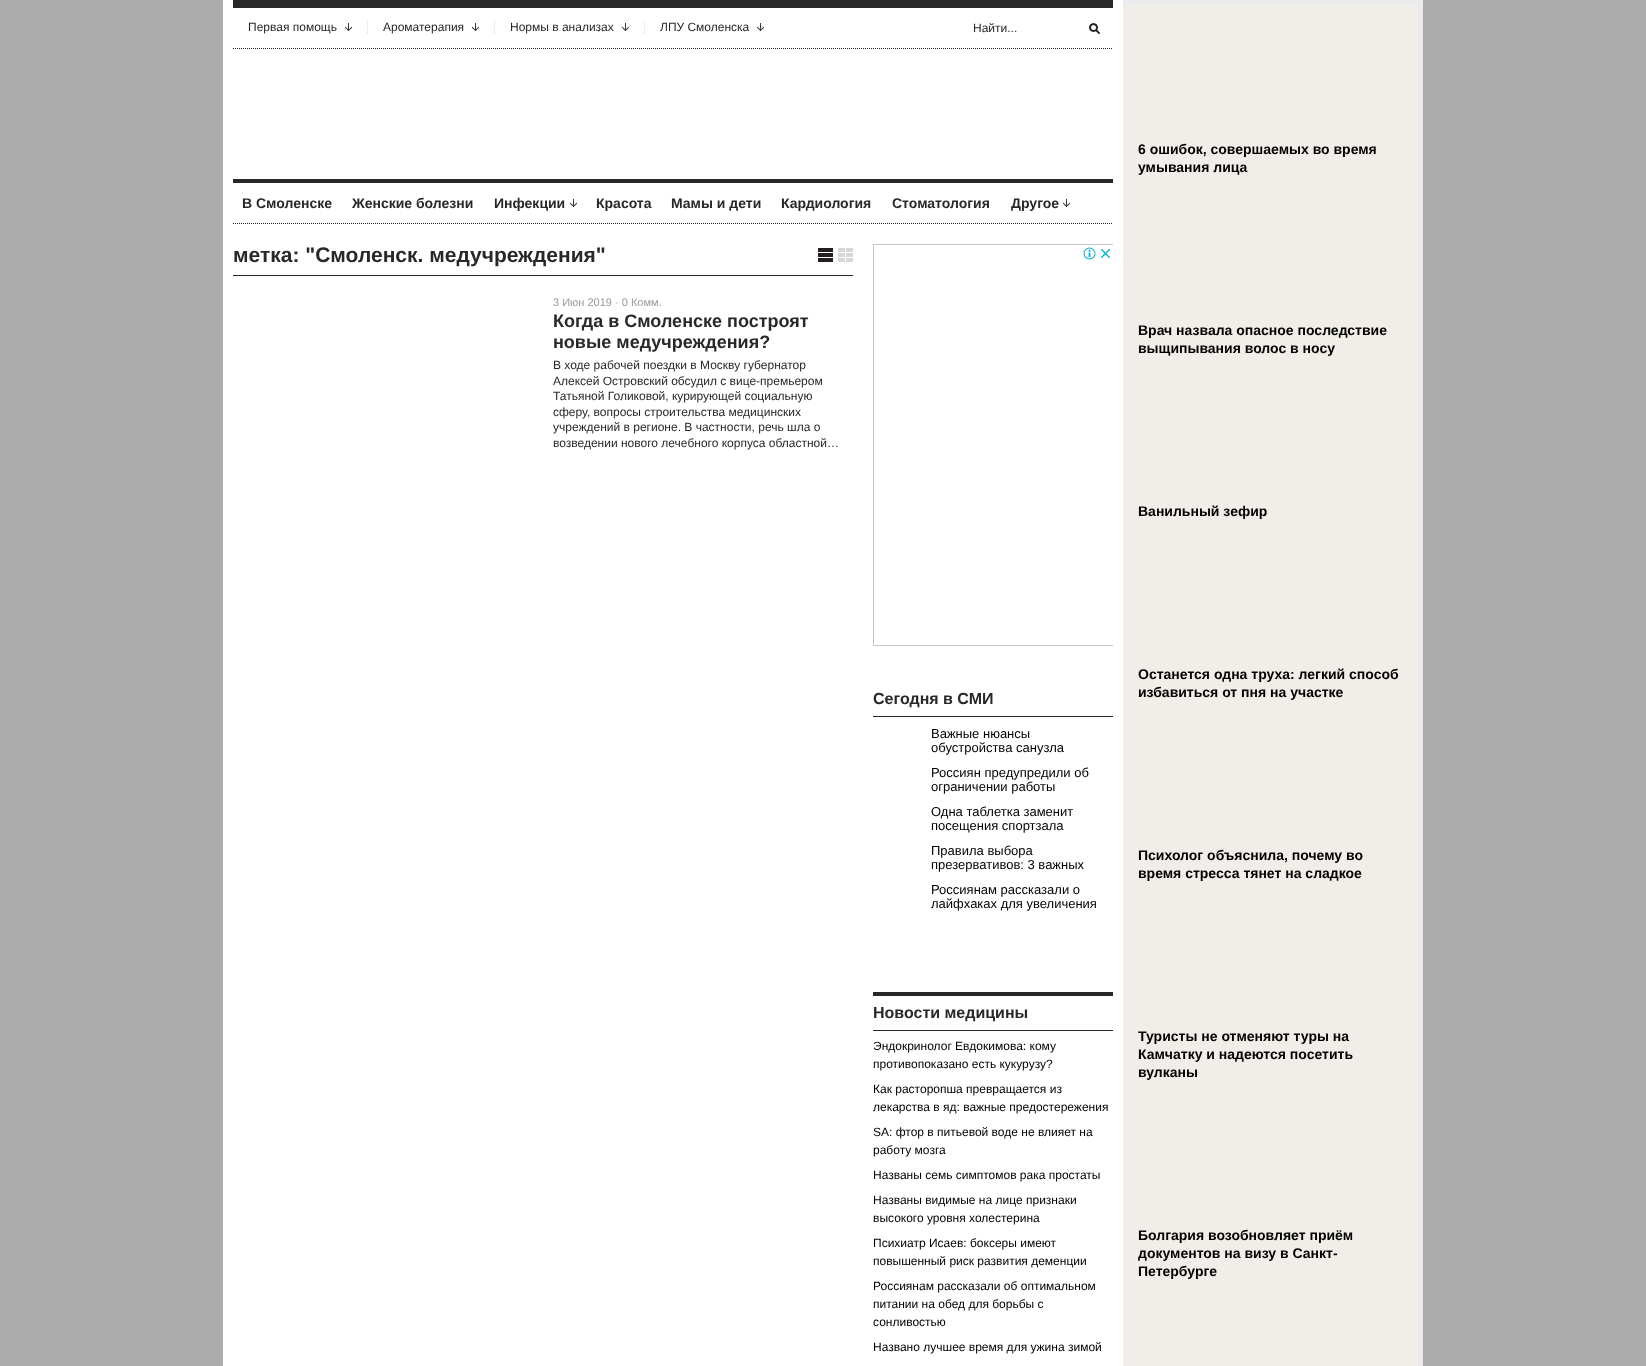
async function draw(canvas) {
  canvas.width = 1646
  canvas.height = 1366
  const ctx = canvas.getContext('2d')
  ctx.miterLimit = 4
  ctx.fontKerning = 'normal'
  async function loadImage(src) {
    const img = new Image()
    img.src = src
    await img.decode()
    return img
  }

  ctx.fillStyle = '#ababab'
  ctx.fillRect(0, 0, 1646, 1366)
  ctx.fillStyle = '#fff'
  ctx.fillRect(223, 0, 900, 1366)
  ctx.fillStyle = '#282828'
  ctx.fillRect(233, 0, 880, 8)
  ctx.beginPath()
  ctx.moveTo(233, 48.5)
  ctx.lineTo(1113, 48.5)
  ctx.strokeStyle = '#282828'
  ctx.setLineDash([1, 1])
  ctx.stroke()
  ctx.font = '12px Liberation Sans'
  ctx.fillText('Первая помощь', 248, 31)
  ctx.drawImage(await loadImage('image0.png'), 345, 23, 7, 8)
  ctx.beginPath()
  ctx.moveTo(367.5, 20)
  ctx.lineTo(367.5, 34)
  ctx.strokeStyle = '#ddd'
  ctx.stroke()
  ctx.fillText('Ароматерапия', 383, 31)
  ctx.drawImage(await loadImage('image0.png'), 472, 23, 7, 8)
  ctx.beginPath()
  ctx.moveTo(494.5, 20)
  ctx.lineTo(494.5, 34)
  ctx.stroke()
  ctx.fillText('Нормы в анализах', 510, 31)
  ctx.drawImage(await loadImage('image0.png'), 622, 23, 7, 8)
  ctx.beginPath()
  ctx.moveTo(644.5, 20)
  ctx.lineTo(644.5, 34)
  ctx.stroke()
  ctx.fillText('ЛПУ Смоленска', 660, 31)
  ctx.drawImage(await loadImage('image0.png'), 757, 23, 7, 8)
  ctx.fillText('Найти...', 973, 32)
  ctx.drawImage(await loadImage('image1.png'), 1089, 23, 11, 11)
  ctx.fillRect(233, 179, 880, 4)
  ctx.beginPath()
  ctx.moveTo(233, 223.5)
  ctx.lineTo(1113, 223.5)
  ctx.strokeStyle = '#282828'
  ctx.stroke()
  ctx.font = 'bold 14px Liberation Sans'
  ctx.fillText('В Смоленске', 242, 208)
  ctx.fillText('Женские болезни', 352, 208)
  ctx.drawImage(await loadImage('image0.png'), 570, 199, 7, 8)
  ctx.fillText('Инфекции', 494, 208)
  ctx.fillText('Красота', 596, 208)
  ctx.fillText('Мамы и дети', 671, 208)
  ctx.fillText('Кардиология', 781, 208)
  ctx.fillText('Стоматология', 892, 208)
  ctx.drawImage(await loadImage('image0.png'), 1063, 199, 7, 8)
  ctx.fillText('Другое', 1011, 208)
  ctx.fillRect(233, 275, 620, 1)
  ctx.font = 'bold 21px Liberation Sans'
  ctx.fillText('метка: "Смоленск. медучреждения"', 233, 262)
  ctx.drawImage(await loadImage('image2.png'), 818, 248, 35, 14)
  ctx.font = '11px Liberation Sans'
  ctx.fillStyle = '#999'
  ctx.fillText('3 Июн 2019 · 0 Комм.', 553, 306)
  ctx.font = 'bold 18px Liberation Sans'
  ctx.fillStyle = '#282828'
  ctx.fillText('Когда в Смоленске построят', 553, 327)
  ctx.fillText('новые медучреждения?', 553, 348)
  ctx.font = '12px Liberation Sans'
  ctx.fillText('В ходе рабочей поездки в Москву губернатор', 553, 369)
  ctx.fillText('Алексей Островский обсудил с вице-премьером', 553, 385)
  ctx.fillText('Татьяной Голиковой, курирующей социальную', 553, 400)
  ctx.fillText('сферу, вопросы строительства медицинских', 553, 416)
  ctx.fillText('учреждений в регионе. В частности, речь шла о', 553, 431)
  ctx.fillText('возведении нового лечебного корпуса областной…', 553, 447)
  ctx.save()
  ctx.beginPath()
  ctx.rect(873, 244, 240, 404)
  ctx.clip()
  ctx.strokeStyle = '#c7c7c7'
  ctx.setLineDash([])
  ctx.strokeRect(873.5, 244.5, 241, 401)
  ctx.restore()
  ctx.drawImage(await loadImage('image3.png'), 1083, 247, 28, 13)
  ctx.fillRect(873, 716, 240, 1)
  ctx.font = 'bold 16px Liberation Sans'
  ctx.fillText('Сегодня в СМИ', 873, 704)
  ctx.font = '13px Liberation Sans'
  ctx.fillStyle = '#000'
  ctx.fillText('Важные нюансы', 931, 738)
  ctx.fillText('обустройства санузла', 931, 752)
  ctx.fillText('Россиян предупредили об', 931, 777)
  ctx.fillText('ограничении работы', 931, 791)
  ctx.fillText('Одна таблетка заменит', 931, 816)
  ctx.fillText('посещения спортзала', 931, 830)
  ctx.fillText('Правила выбора', 931, 855)
  ctx.fillText('презервативов: 3 важных', 931, 869)
  ctx.fillText('Россиянам рассказали о', 931, 894)
  ctx.fillText('лайфхаках для увеличения', 931, 908)
  ctx.fillStyle = '#282828'
  ctx.fillRect(873, 992, 240, 4)
  ctx.fillRect(873, 1030, 240, 1)
  ctx.font = 'bold 16px Liberation Sans'
  ctx.fillText('Новости медицины', 873, 1018)
  ctx.font = '12px Liberation Sans'
  ctx.fillStyle = '#000'
  ctx.fillText('Эндокринолог Евдокимова: кому', 873, 1050)
  ctx.fillText('противопоказано есть кукурузу?', 873, 1068)
  ctx.fillText('Как расторопша превращается из', 873, 1093)
  ctx.fillText('лекарства в яд: важные предостережения', 873, 1111)
  ctx.fillText('SA: фтор в питьевой воде не влияет на', 873, 1136)
  ctx.fillText('работу мозга', 873, 1154)
  ctx.fillText('Названы семь симптомов рака простаты', 873, 1179)
  ctx.fillText('Названы видимые на лице признаки', 873, 1204)
  ctx.fillText('высокого уровня холестерина', 873, 1222)
  ctx.fillText('Психиатр Исаев: боксеры имеют', 873, 1247)
  ctx.fillText('повышенный риск развития деменции', 873, 1265)
  ctx.fillText('Россиянам рассказали об оптимальном', 873, 1290)
  ctx.fillText('питании на обед для борьбы с', 873, 1308)
  ctx.fillText('сонливостью', 873, 1326)
  ctx.fillText('Названо лучшее время для ужина зимой', 873, 1351)
  ctx.fillStyle = '#f1eee9'
  ctx.fillRect(1123, 5, 295, 1361)
  ctx.fillStyle = '#ececec'
  ctx.fillRect(1123, 0, 300, 5)
  ctx.fillRect(1418, 0, 5, 1366)
  ctx.font = 'bold 14px Liberation Sans'
  ctx.fillStyle = '#000'
  ctx.fillText('6 ошибок, совершаемых во время', 1138, 154)
  ctx.fillText('умывания лица', 1138, 172)
  ctx.fillText('Врач назвала опасное последствие', 1138, 335)
  ctx.fillText('выщипывания волос в носу', 1138, 353)
  ctx.fillText('Ванильный зефир', 1138, 516)
  ctx.fillText('Останется одна труха: легкий способ', 1138, 679)
  ctx.fillText('избавиться от пня на участке', 1138, 697)
  ctx.fillText('Психолог объяснила, почему во', 1138, 860)
  ctx.fillText('время стресса тянет на сладкое', 1138, 878)
  ctx.fillText('Туристы не отменяют туры на', 1138, 1041)
  ctx.fillText('Камчатку и надеются посетить', 1138, 1059)
  ctx.fillText('вулканы', 1138, 1077)
  ctx.fillText('Болгария возобновляет приём', 1138, 1240)
  ctx.fillText('документов на визу в Санкт-', 1138, 1258)
  ctx.fillText('Петербурге', 1138, 1276)
}

draw(document.querySelector('canvas'))
